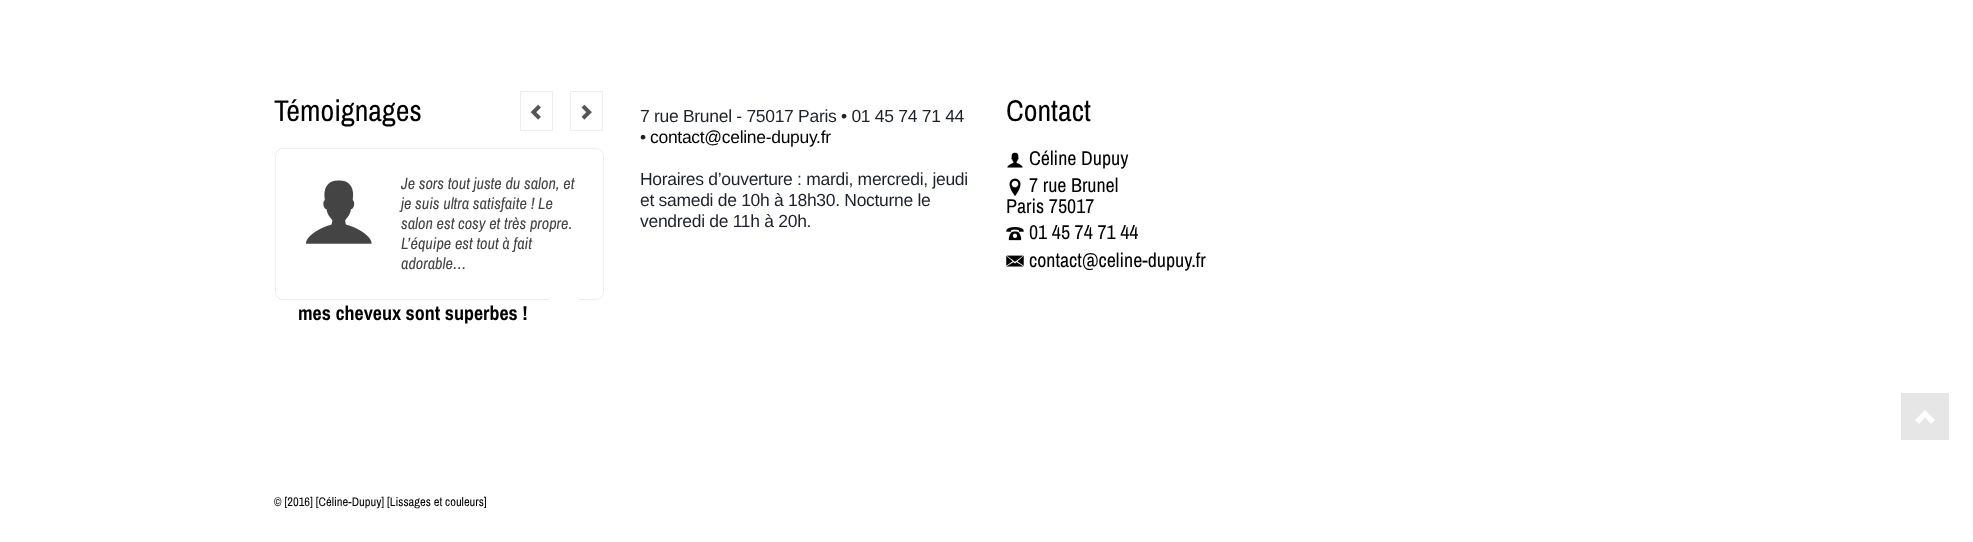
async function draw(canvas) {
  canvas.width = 1973
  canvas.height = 542
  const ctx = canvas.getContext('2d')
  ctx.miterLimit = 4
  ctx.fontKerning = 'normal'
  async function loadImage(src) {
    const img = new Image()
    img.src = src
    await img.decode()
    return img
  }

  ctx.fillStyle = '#fff'
  ctx.fillRect(0, 0, 1973, 542)
  ctx.font = '30px Archivo Narrow'
  ctx.fillStyle = '#000'
  ctx.fillText('Témoignages', 274, 121)
  ctx.strokeStyle = '#eee'
  ctx.strokeRect(520.5, 91.5, 32, 39)
  ctx.drawImage(await loadImage('image0.png'), 530, 104, 11, 16)
  ctx.strokeRect(570.5, 91.5, 32, 39)
  ctx.drawImage(await loadImage('image1.png'), 581, 104, 11, 16)
  ctx.beginPath()
  ctx.roundRect(275.5, 148.5, 328, 151, 7.5)
  ctx.stroke()
  ctx.drawImage(await loadImage('image2.png'), 306, 180, 66, 64)
  ctx.font = 'italic 16.25px Archivo Narrow'
  ctx.fillStyle = '#444'
  ctx.fillText('Je sors tout juste du salon, et', 401, 189)
  ctx.fillText('je suis ultra satisfaite ! Le', 401, 209)
  ctx.fillText('salon est cosy et très propre.', 401, 229)
  ctx.fillText('L’équipe est tout à fait', 401, 249)
  ctx.fillText('adorable…', 401, 269)
  ctx.font = 'bold 20px Archivo Narrow'
  ctx.fillStyle = '#000'
  ctx.fillText('mes cheveux sont superbes !', 298, 320)
  ctx.fillStyle = '#fff'
  ctx.beginPath()
  ctx.moveTo(549, 299)
  ctx.lineTo(579, 299)
  ctx.lineTo(564, 314)
  ctx.closePath()
  ctx.fill()
  ctx.letterSpacing = '-0.3px'
  ctx.font = '17.5px Liberation Sans'
  ctx.fillStyle = '#1d2129'
  ctx.fillText('7 rue Brunel - 75017 Paris • 01 45 74 71 44', 640, 122)
  ctx.fillText('•', 640, 143)
  ctx.fillStyle = '#000'
  ctx.fillText('contact@celine-dupuy.fr', 650, 143)
  ctx.fillStyle = '#1d2129'
  ctx.fillText('Horaires d’ouverture : mardi, mercredi, jeudi', 640, 185)
  ctx.fillText('et samedi de 10h à 18h30. Nocturne le', 640, 206)
  ctx.fillText('vendredi de 11h à 20h.', 640, 227)
  ctx.letterSpacing = '0px'
  ctx.font = '30px Archivo Narrow'
  ctx.fillStyle = '#000'
  ctx.fillText('Contact', 1006, 121)
  ctx.drawImage(await loadImage('image3.png'), 1007, 152, 16, 16)
  ctx.font = '20px Archivo Narrow'
  ctx.fillText('Céline Dupuy', 1029, 165)
  ctx.drawImage(await loadImage('image4.png'), 1009, 178, 12, 18)
  ctx.fillText('7 rue Brunel', 1029, 192)
  ctx.fillText('Paris 75017', 1006, 213)
  ctx.drawImage(await loadImage('image5.png'), 1006, 227, 18, 14)
  ctx.fillText('01 45 74 71 44', 1029, 239)
  ctx.drawImage(await loadImage('image6.png'), 1006, 255, 18, 12)
  ctx.fillText('contact@celine-dupuy.fr', 1029, 267)
  ctx.font = '12.5px Archivo Narrow'
  ctx.fillText('© [2016] [Céline-Dupuy] [Lissages et couleurs]', 274, 506)
  ctx.fillStyle = '#e6e6e6'
  ctx.fillRect(1901, 393, 48, 47)
  ctx.fillStyle = '#fff'
  ctx.beginPath()
  ctx.moveTo(1915, 420)
  ctx.lineTo(1919, 424)
  ctx.lineTo(1925, 417.5)
  ctx.lineTo(1931, 424)
  ctx.lineTo(1935, 420)
  ctx.lineTo(1925, 410)
  ctx.closePath()
  ctx.fill()
}

draw(document.querySelector('canvas'))
